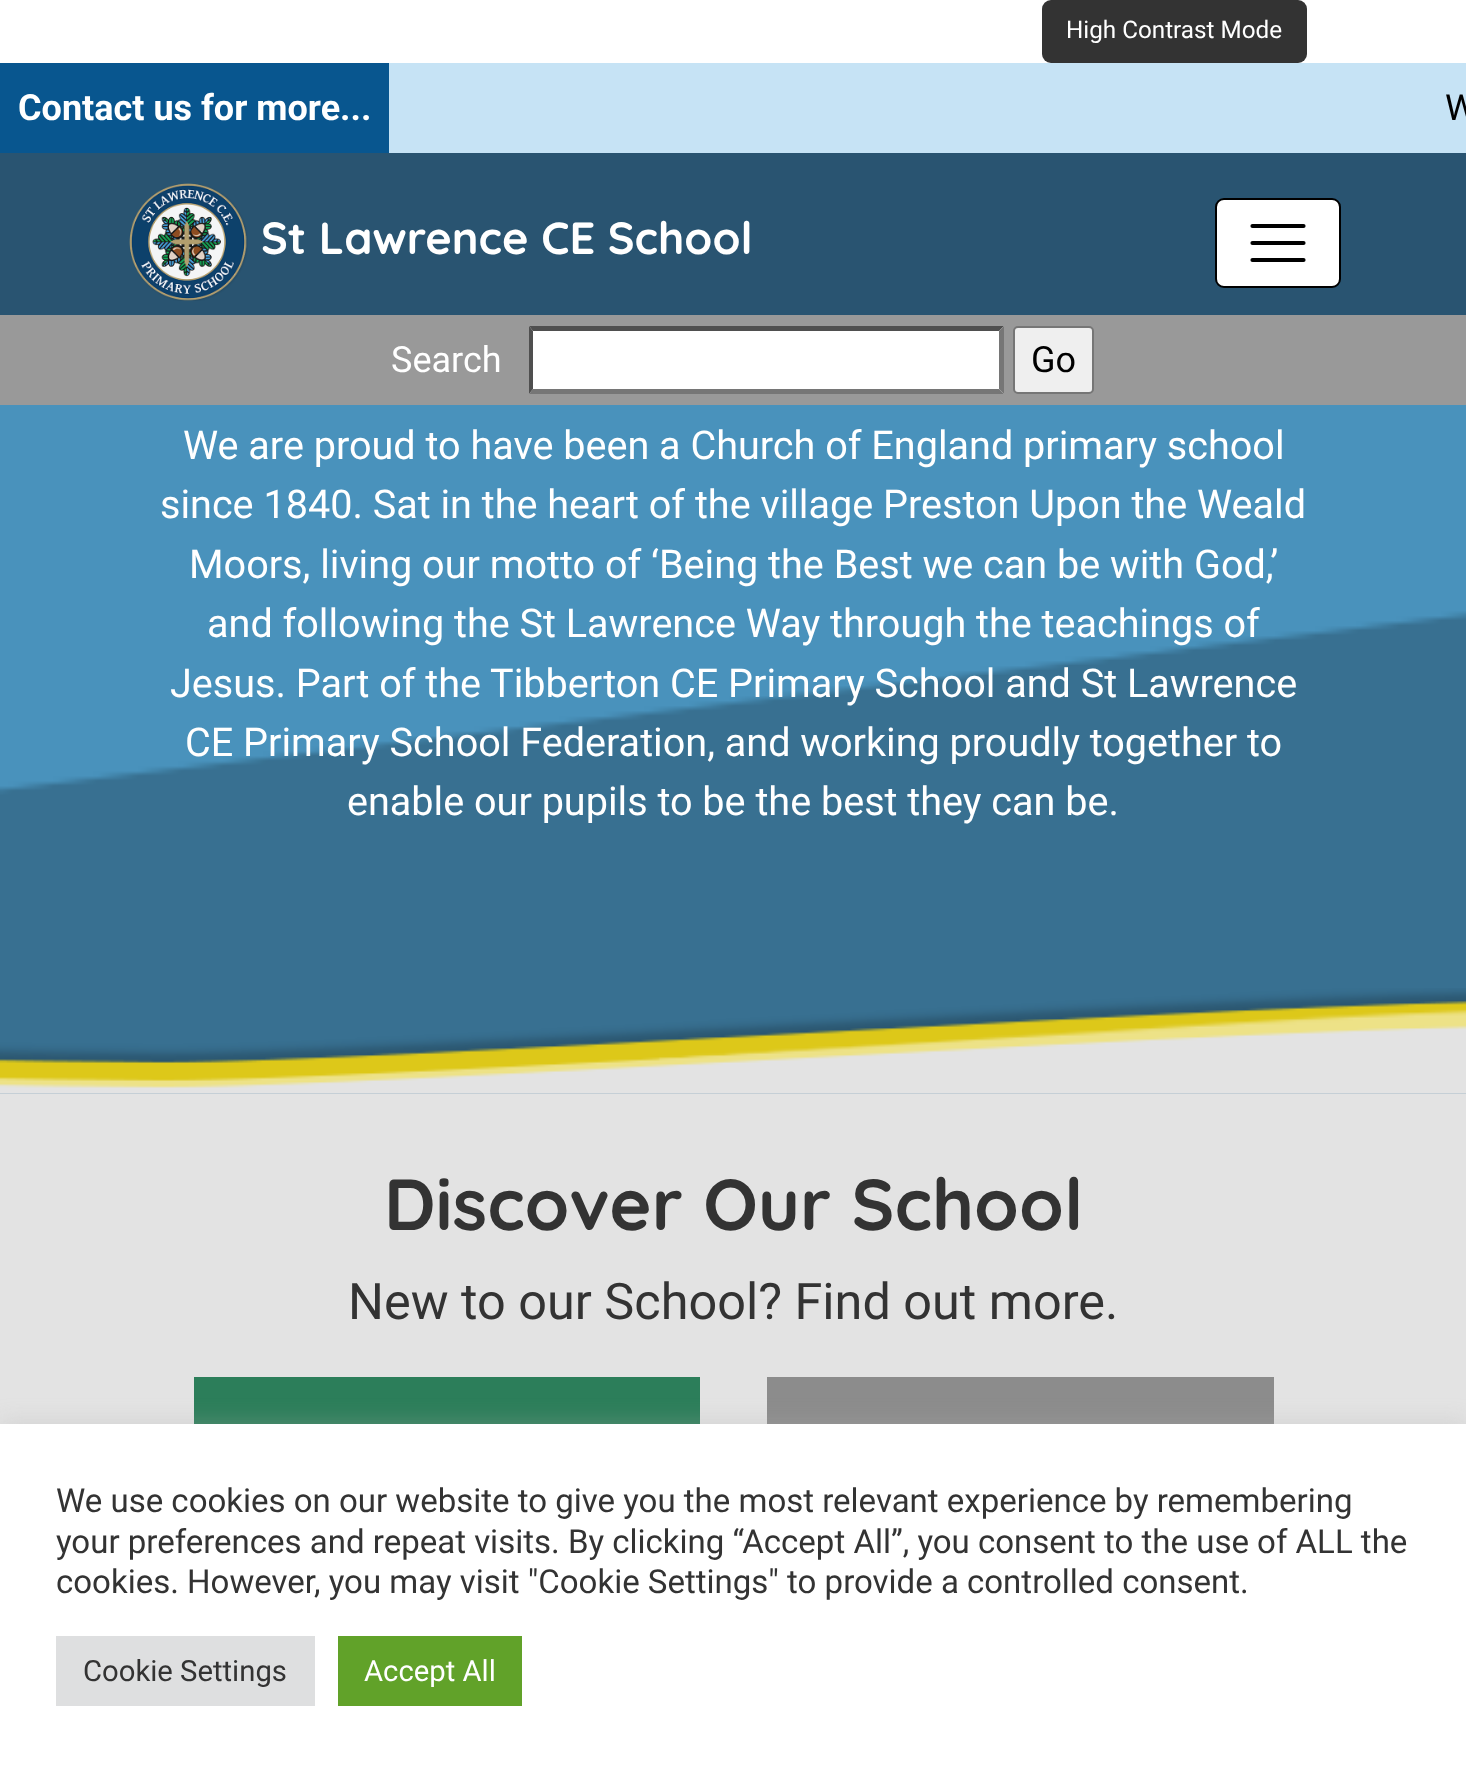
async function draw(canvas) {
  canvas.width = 1466
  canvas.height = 1771
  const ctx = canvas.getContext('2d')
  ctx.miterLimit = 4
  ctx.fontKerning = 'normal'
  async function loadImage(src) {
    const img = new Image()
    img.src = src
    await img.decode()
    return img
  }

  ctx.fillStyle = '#fff'
  ctx.fillRect(0, 0, 1466, 1771)
  ctx.fillStyle = '#333'
  ctx.beginPath()
  ctx.roundRect(1042, 0, 265, 63, 9)
  ctx.fill()
  ctx.font = '24.25px Roboto'
  ctx.fillStyle = '#fff'
  ctx.fillText('High Contrast Mode', 1066, 38)
  ctx.fillStyle = '#c6e3f5'
  ctx.fillRect(389, 63, 1077, 90)
  ctx.fillStyle = '#08568f'
  ctx.fillRect(0, 63, 389, 90)
  ctx.font = 'bold 36px Roboto'
  ctx.fillStyle = '#fff'
  ctx.fillText('Contact us for more...', 18, 120)
  ctx.font = '36px Roboto'
  ctx.fillStyle = '#000'
  ctx.fillText('W', 1445, 120)
  ctx.fillStyle = '#295471'
  ctx.fillRect(0, 153, 1466, 162)
  ctx.drawImage(await loadImage('image0.png'), 129, 183, 119, 118)
  ctx.font = '300 45px Quicksand'
  ctx.fillStyle = '#fff'
  ctx.fillText('St Lawrence CE School', 261, 254)
  ctx.beginPath()
  ctx.roundRect(1216, 199, 124, 88, 8)
  ctx.fill()
  ctx.strokeStyle = '#000'
  ctx.lineWidth = 2
  ctx.stroke()
  ctx.beginPath()
  ctx.moveTo(1252.5, 226)
  ctx.lineTo(1303.5, 226)
  ctx.moveTo(1252.5, 243)
  ctx.lineTo(1303.5, 243)
  ctx.moveTo(1252.5, 260)
  ctx.lineTo(1303.5, 260)
  ctx.lineWidth = 4.2
  ctx.lineCap = 'round'
  ctx.stroke()
  ctx.fillStyle = '#999'
  ctx.fillRect(0, 315, 1466, 90)
  ctx.font = '36px Roboto'
  ctx.fillStyle = '#fff'
  ctx.fillText('Search', 391, 372)
  ctx.fillRect(529, 326, 475, 68)
  ctx.fillStyle = '#4f4f4f'
  ctx.beginPath()
  ctx.moveTo(529, 326)
  ctx.lineTo(1004, 326)
  ctx.lineTo(999, 331)
  ctx.lineTo(533, 331)
  ctx.closePath()
  ctx.fill()
  ctx.fillStyle = '#767676'
  ctx.beginPath()
  ctx.moveTo(1004, 326)
  ctx.lineTo(1004, 394)
  ctx.lineTo(999, 389)
  ctx.lineTo(999, 331)
  ctx.closePath()
  ctx.fill()
  ctx.beginPath()
  ctx.moveTo(1004, 394)
  ctx.lineTo(529, 394)
  ctx.lineTo(533, 389)
  ctx.lineTo(999, 389)
  ctx.closePath()
  ctx.fill()
  ctx.fillStyle = '#4f4f4f'
  ctx.beginPath()
  ctx.moveTo(529, 394)
  ctx.lineTo(529, 326)
  ctx.lineTo(533, 331)
  ctx.lineTo(533, 389)
  ctx.closePath()
  ctx.fill()
  ctx.fillStyle = '#efefef'
  ctx.beginPath()
  ctx.roundRect(1014, 327, 79, 66, 4)
  ctx.fill()
  ctx.strokeStyle = '#767676'
  ctx.lineWidth = 2
  ctx.stroke()
  ctx.fillStyle = '#000'
  ctx.fillText('Go', 1031, 372)
  ctx.drawImage(await loadImage('image1.png'), 0, 405, 1466, 689)
  ctx.font = '39.6px Roboto'
  ctx.fillStyle = '#fff'
  ctx.fillText('We are proud to have been a Church of England primary school', 183, 459)
  ctx.fillText('since 1840. Sat in the heart of the village Preston Upon the Weald', 160, 518)
  ctx.fillText('Moors, living our motto of ‘Being the Best we can be with God,’', 189, 578)
  ctx.fillText('and following the St Lawrence Way through the teachings of', 207, 637)
  ctx.fillText('Jesus. Part of the Tibberton CE Primary School and St Lawrence', 170, 697)
  ctx.fillText('CE Primary School Federation, and working proudly together to', 185, 756)
  ctx.fillText('enable our pupils to be the best they can be.', 347, 815)
  ctx.fillStyle = '#e3e3e3'
  ctx.fillRect(0, 1094, 1466, 330)
  ctx.drawImage(await loadImage('image2.png'), 0, 988, 1466, 106)
  ctx.font = '300 72px Quicksand'
  ctx.fillStyle = '#333'
  ctx.fillText('Discover Our School', 384, 1230)
  ctx.font = '50.4px Roboto'
  ctx.fillText('New to our School? Find out more.', 348, 1319)
  ctx.fillStyle = '#2c7e5a'
  ctx.fillRect(194, 1377, 506, 47)
  ctx.fillStyle = '#8c8c8c'
  ctx.fillRect(767, 1377, 507, 47)
  ctx.fillStyle = '#acabab4d'
  ctx.filter = 'blur(11px)'
  ctx.beginPath()
  ctx.rect(0, 1422, 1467, 349)
  ctx.fill()
  ctx.filter = 'none'
  ctx.fillStyle = '#fff'
  ctx.fillRect(0, 1424, 1466, 347)
  ctx.font = '33px Roboto'
  ctx.fillStyle = '#333'
  ctx.fillText('We use cookies on our website to give you the most relevant experience by remembering', 56, 1512)
  ctx.fillText('your preferences and repeat visits. By clicking “Accept All”, you consent to the use of ALL the', 56, 1553)
  ctx.fillText('cookies. However, you may visit "Cookie Settings" to provide a controlled consent.', 56, 1593)
  ctx.fillStyle = '#dedfe0'
  ctx.fillRect(56, 1636, 259, 70)
  ctx.font = '29.25px Roboto'
  ctx.fillStyle = '#333'
  ctx.fillText('Cookie Settings', 83, 1681)
  ctx.fillStyle = '#61a229'
  ctx.fillRect(338, 1636, 184, 70)
  ctx.fillStyle = '#fff'
  ctx.fillText('Accept All', 364, 1681)
}

draw(document.querySelector('canvas'))
